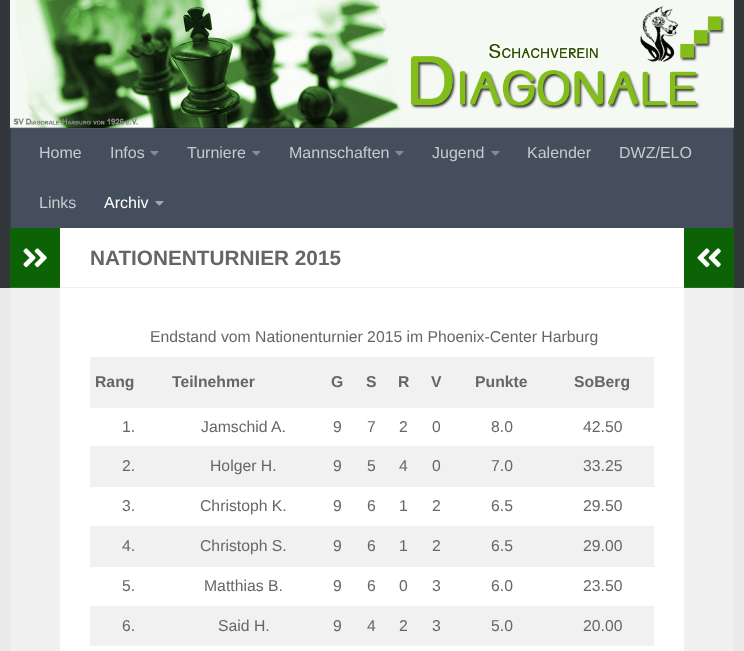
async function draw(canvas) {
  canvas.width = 744
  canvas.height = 651
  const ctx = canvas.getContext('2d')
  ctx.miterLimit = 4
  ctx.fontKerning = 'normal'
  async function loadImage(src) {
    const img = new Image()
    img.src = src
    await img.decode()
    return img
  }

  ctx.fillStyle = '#eaeaea'
  ctx.fillRect(0, 0, 744, 651)
  ctx.fillStyle = '#33363b'
  ctx.fillRect(0, 0, 744, 288)
  ctx.drawImage(await loadImage('image0.png'), 10, 0, 724, 128)
  ctx.fillStyle = '#00000033'
  ctx.fillRect(10, 127, 724, 1)
  ctx.fillStyle = '#454e5c'
  ctx.fillRect(11, 129, 722, 99)
  ctx.fillStyle = '#4e5764'
  ctx.fillRect(10, 128, 724, 1)
  ctx.fillStyle = '#373e4a'
  ctx.fillRect(733, 128, 1, 100)
  ctx.fillStyle = '#414853'
  ctx.fillRect(733, 128, 1, 1)
  ctx.fillStyle = '#373e4a'
  ctx.fillRect(10, 128, 1, 100)
  ctx.fillStyle = '#414853'
  ctx.fillRect(10, 128, 1, 1)
  ctx.font = '16px Liberation Sans'
  ctx.fillStyle = '#c7cace'
  ctx.fillText('Home', 39, 158)
  ctx.fillText('Infos', 110, 158)
  ctx.drawImage(await loadImage('image1.png'), 150, 151, 9, 5)
  ctx.fillText('Turniere', 187, 158)
  ctx.drawImage(await loadImage('image1.png'), 252, 151, 9, 5)
  ctx.fillText('Mannschaften', 289, 158)
  ctx.drawImage(await loadImage('image1.png'), 395, 151, 9, 5)
  ctx.fillText('Jugend', 432, 158)
  ctx.drawImage(await loadImage('image1.png'), 491, 151, 9, 5)
  ctx.fillText('Kalender', 527, 158)
  ctx.fillText('DWZ/ELO', 619, 158)
  ctx.fillText('Links', 39, 208)
  ctx.fillStyle = '#fff'
  ctx.fillText('Archiv', 104, 208)
  ctx.drawImage(await loadImage('image2.png'), 155, 201, 9, 5)
  ctx.fillRect(60, 228, 624, 423)
  ctx.fillStyle = '#f0f0f0'
  ctx.fillRect(10, 288, 50, 363)
  ctx.fillStyle = '#0b6306'
  ctx.fillRect(10, 228, 50, 59)
  ctx.fillStyle = '#23731f'
  ctx.fillRect(10, 287, 50, 1)
  ctx.drawImage(await loadImage('image3.png'), 23, 248, 24, 20)
  ctx.fillStyle = '#eee'
  ctx.fillRect(60, 287, 624, 1)
  ctx.font = 'bold 20.75px Liberation Sans'
  ctx.fillStyle = '#666'
  ctx.fillText('NATIONENTURNIER 2015', 90, 265)
  ctx.font = '15.75px Liberation Sans'
  ctx.fillText('Endstand vom Nationenturnier 2015 im Phoenix-Center Harburg', 150, 342)
  ctx.fillStyle = '#f1f1f1'
  ctx.fillRect(90, 357, 564, 50)
  ctx.font = 'bold 15.75px Liberation Sans'
  ctx.fillStyle = '#666'
  ctx.fillText('Rang', 95, 387)
  ctx.fillText('Teilnehmer', 172, 387)
  ctx.fillText('G', 331, 387)
  ctx.fillText('S', 366, 387)
  ctx.fillText('R', 398, 387)
  ctx.fillText('V', 431, 387)
  ctx.fillText('Punkte', 475, 387)
  ctx.fillStyle = '#f1f1f1'
  ctx.fillRect(654, 357, 1, 1)
  ctx.fillRect(90, 407, 565, 1)
  ctx.fillStyle = '#666'
  ctx.fillText('SoBerg', 574, 387)
  ctx.font = '15.75px Liberation Sans'
  ctx.fillText('1.', 122, 432)
  ctx.fillText('Jamschid A.', 201, 432)
  ctx.fillText('9', 333, 432)
  ctx.fillText('7', 367, 432)
  ctx.fillText('2', 399, 432)
  ctx.fillText('0', 432, 432)
  ctx.fillText('8.0', 491, 432)
  ctx.fillStyle = '#f1f1f1'
  ctx.fillRect(90, 446, 565, 1)
  ctx.fillStyle = '#666'
  ctx.fillText('42.50', 583, 432)
  ctx.fillStyle = '#f1f1f1'
  ctx.fillRect(90, 447, 564, 40)
  ctx.fillStyle = '#666'
  ctx.fillText('2.', 122, 471)
  ctx.fillText('Holger H.', 210, 471)
  ctx.fillText('9', 333, 471)
  ctx.fillText('5', 367, 471)
  ctx.fillText('4', 399, 471)
  ctx.fillText('0', 432, 471)
  ctx.fillText('7.0', 491, 471)
  ctx.fillStyle = '#f1f1f1'
  ctx.fillRect(654, 486, 1, 1)
  ctx.fillStyle = '#666'
  ctx.fillText('33.25', 583, 471)
  ctx.fillText('3.', 122, 511)
  ctx.fillText('Christoph K.', 200, 511)
  ctx.fillText('9', 333, 511)
  ctx.fillText('6', 367, 511)
  ctx.fillText('1', 399, 511)
  ctx.fillText('2', 432, 511)
  ctx.fillText('6.5', 491, 511)
  ctx.fillStyle = '#f1f1f1'
  ctx.fillRect(654, 526, 1, 1)
  ctx.fillStyle = '#666'
  ctx.fillText('29.50', 583, 511)
  ctx.fillStyle = '#f1f1f1'
  ctx.fillRect(90, 526, 564, 40)
  ctx.fillStyle = '#666'
  ctx.fillText('4.', 122, 551)
  ctx.fillText('Christoph S.', 200, 551)
  ctx.fillText('9', 333, 551)
  ctx.fillText('6', 367, 551)
  ctx.fillText('1', 399, 551)
  ctx.fillText('2', 432, 551)
  ctx.fillText('6.5', 491, 551)
  ctx.fillStyle = '#f1f1f1'
  ctx.fillRect(90, 566, 565, 1)
  ctx.fillStyle = '#666'
  ctx.fillText('29.00', 583, 551)
  ctx.fillText('5.', 122, 591)
  ctx.fillText('Matthias B.', 204, 591)
  ctx.fillText('9', 333, 591)
  ctx.fillText('6', 367, 591)
  ctx.fillText('0', 399, 591)
  ctx.fillText('3', 432, 591)
  ctx.fillText('6.0', 491, 591)
  ctx.fillStyle = '#f1f1f1'
  ctx.fillRect(654, 606, 1, 1)
  ctx.fillStyle = '#666'
  ctx.fillText('23.50', 583, 591)
  ctx.fillStyle = '#f1f1f1'
  ctx.fillRect(90, 606, 564, 40)
  ctx.fillStyle = '#666'
  ctx.fillText('6.', 122, 631)
  ctx.fillText('Said H.', 218, 631)
  ctx.fillText('9', 333, 631)
  ctx.fillText('4', 367, 631)
  ctx.fillText('2', 399, 631)
  ctx.fillText('3', 432, 631)
  ctx.fillText('5.0', 491, 631)
  ctx.fillStyle = '#f1f1f1'
  ctx.fillRect(654, 645, 1, 1)
  ctx.fillStyle = '#666'
  ctx.fillText('20.00', 583, 631)
  ctx.fillStyle = '#0b6306'
  ctx.fillRect(684, 228, 50, 59)
  ctx.fillStyle = '#23731f'
  ctx.fillRect(684, 287, 50, 1)
  ctx.drawImage(await loadImage('image4.png'), 697, 248, 24, 20)
  ctx.fillStyle = '#f0f0f0'
  ctx.fillRect(684, 288, 50, 363)
}

draw(document.querySelector('canvas'))
